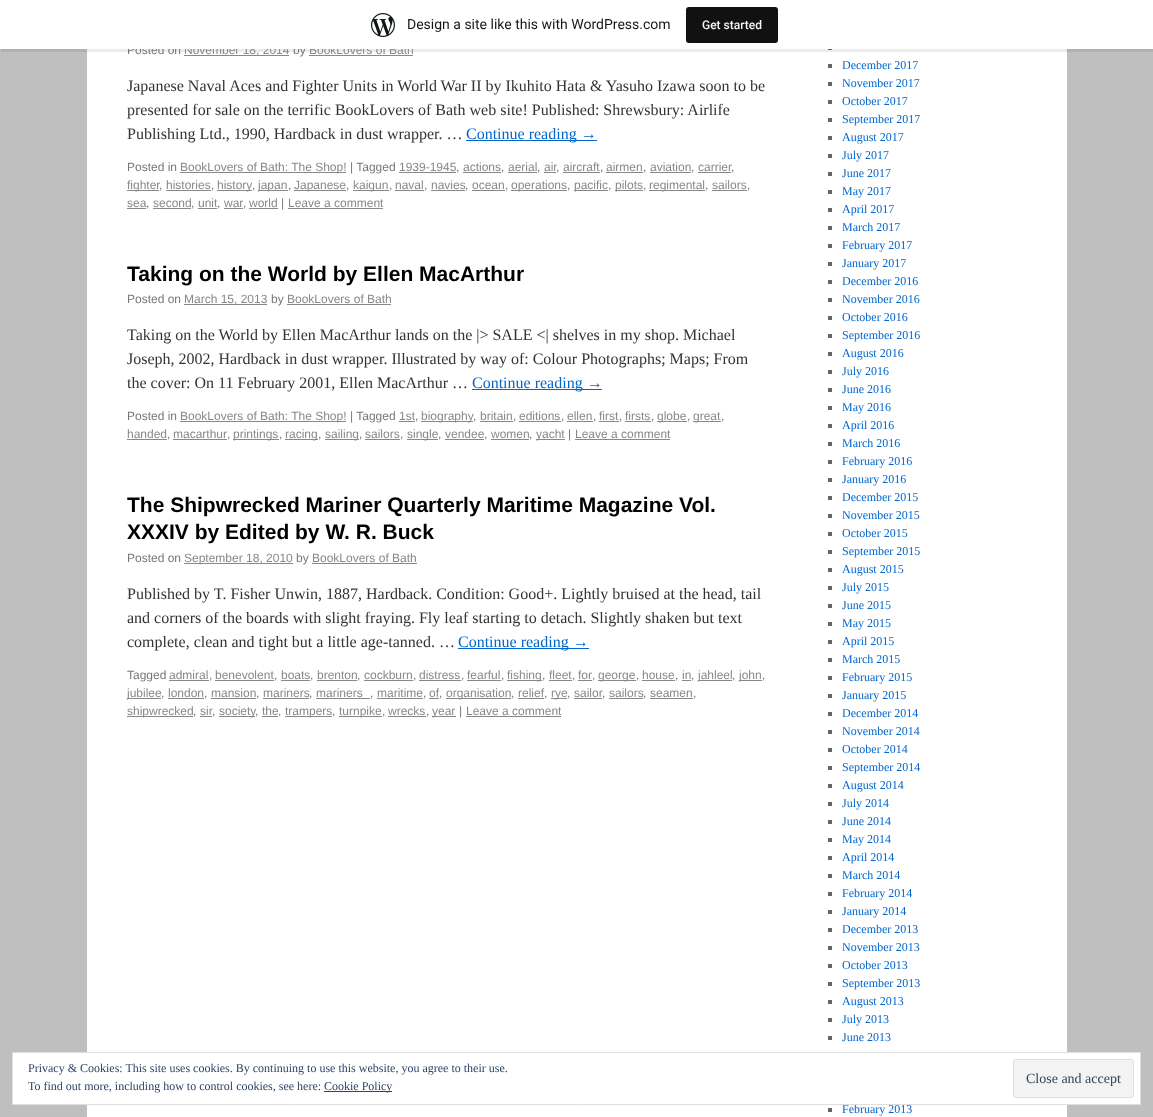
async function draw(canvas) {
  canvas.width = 1153
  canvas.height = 1117
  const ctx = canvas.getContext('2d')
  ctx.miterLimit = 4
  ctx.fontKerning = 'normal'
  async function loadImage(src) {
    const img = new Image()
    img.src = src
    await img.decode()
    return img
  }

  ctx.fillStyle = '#bfbfbf'
  ctx.fillRect(0, 0, 1153, 1117)
  ctx.fillStyle = '#fff'
  ctx.fillRect(87, 49, 980, 1068)
  ctx.fillStyle = '#666'
  ctx.fillRect(828, 49, 4, 1)
  ctx.fillStyle = '#00000014'
  ctx.beginPath()
  ctx.moveTo(1, 49)
  ctx.lineTo(1, 52)
  ctx.lineTo(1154, 52)
  ctx.lineTo(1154, 3)
  ctx.lineTo(1153, 3)
  ctx.lineTo(1153, 49)
  ctx.closePath()
  ctx.fill()
  ctx.font = '12px Liberation Sans'
  ctx.fillStyle = '#777'
  ctx.fillText('Posted on', 127, 54)
  ctx.fillStyle = '#888'
  ctx.fillRect(184, 55, 105, 1)
  ctx.fillText('November 18, 2014', 184, 54)
  ctx.fillStyle = '#777'
  ctx.fillText('by', 293, 54)
  ctx.fillStyle = '#888'
  ctx.fillText('BookLovers of Bath', 309, 54)
  ctx.fillStyle = '#fff'
  ctx.fillRect(0, 0, 1153, 49)
  ctx.drawImage(await loadImage('image0.png'), 371, 13, 24, 24)
  ctx.font = '14px Roboto'
  ctx.fillStyle = '#171717'
  ctx.fillText('Design a site like this with WordPress.com', 407, 29)
  ctx.fillStyle = '#111'
  ctx.beginPath()
  ctx.roundRect(686, 7, 92, 36, 3)
  ctx.fill()
  ctx.font = '500 12px Roboto'
  ctx.fillStyle = '#f6f7f7'
  ctx.fillText('Get started', 702, 29)
  ctx.fillStyle = '#888'
  ctx.fillRect(309, 55, 104, 1)
  ctx.font = '16px Liberation Serif'
  ctx.fillStyle = '#333'
  ctx.fillText('Japanese Naval Aces and Fighter Units in World War II by Ikuhito Hata & Yasuho Izawa soon to be', 127, 91)
  ctx.fillText('presented for sale on the terrific BookLovers of Bath web site! Published: Shrewsbury: Airlife', 127, 115)
  ctx.fillText('Publishing Ltd., 1990, Hardback in dust wrapper. …', 127, 139)
  ctx.fillStyle = '#06c'
  ctx.fillRect(466, 140, 131, 1)
  ctx.fillText('Continue reading →', 466, 139)
  ctx.font = '12px Liberation Sans'
  ctx.fillStyle = '#777'
  ctx.fillText('Posted in', 127, 171)
  ctx.fillStyle = '#888'
  ctx.fillRect(180, 172, 166, 1)
  ctx.fillText('BookLovers of Bath: The Shop!', 180, 171)
  ctx.fillStyle = '#777'
  ctx.fillText('| Tagged', 350, 171)
  ctx.fillStyle = '#888'
  ctx.fillText('1939-1945', 399, 171)
  ctx.fillStyle = '#777'
  ctx.fillText(',', 456, 171)
  ctx.fillStyle = '#888'
  ctx.fillRect(399, 172, 57, 1)
  ctx.fillText('actions', 463, 171)
  ctx.fillStyle = '#777'
  ctx.fillText(',', 501, 171)
  ctx.fillStyle = '#888'
  ctx.fillRect(463, 172, 38, 1)
  ctx.fillText('aerial', 508, 171)
  ctx.fillStyle = '#777'
  ctx.fillText(',', 537, 171)
  ctx.fillStyle = '#888'
  ctx.fillRect(508, 172, 29, 1)
  ctx.fillText('air', 544, 171)
  ctx.fillStyle = '#777'
  ctx.fillText(',', 556, 171)
  ctx.fillStyle = '#888'
  ctx.fillRect(544, 172, 12, 1)
  ctx.fillText('aircraft', 563, 171)
  ctx.fillStyle = '#777'
  ctx.fillText(',', 600, 171)
  ctx.fillStyle = '#888'
  ctx.fillRect(563, 172, 37, 1)
  ctx.fillText('airmen', 606, 171)
  ctx.fillStyle = '#777'
  ctx.fillText(',', 643, 171)
  ctx.fillStyle = '#888'
  ctx.fillRect(606, 172, 37, 1)
  ctx.fillText('aviation', 650, 171)
  ctx.fillStyle = '#777'
  ctx.fillText(',', 691, 171)
  ctx.fillStyle = '#888'
  ctx.fillRect(650, 172, 41, 1)
  ctx.fillText('carrier', 698, 171)
  ctx.fillStyle = '#777'
  ctx.fillText(',', 731, 171)
  ctx.fillStyle = '#888'
  ctx.fillRect(698, 172, 33, 1)
  ctx.fillRect(127, 190, 32, 1)
  ctx.fillText('fighter', 127, 189)
  ctx.fillStyle = '#777'
  ctx.fillText(',', 159, 189)
  ctx.fillStyle = '#888'
  ctx.fillText('histories', 166, 189)
  ctx.fillStyle = '#777'
  ctx.fillText(',', 211, 189)
  ctx.fillStyle = '#888'
  ctx.fillRect(166, 190, 45, 1)
  ctx.fillRect(217, 190, 35, 1)
  ctx.fillText('history', 217, 189)
  ctx.fillRect(258, 190, 30, 1)
  ctx.fillText('japan', 258, 189)
  ctx.fillRect(294, 190, 52, 1)
  ctx.fillText('Japanese', 294, 189)
  ctx.fillRect(353, 190, 36, 1)
  ctx.fillText('kaigun', 353, 189)
  ctx.fillText('naval', 395, 189)
  ctx.fillText('navies', 431, 189)
  ctx.fillText('ocean', 472, 189)
  ctx.fillRect(511, 190, 56, 1)
  ctx.fillText('operations', 511, 189)
  ctx.fillRect(574, 190, 34, 1)
  ctx.fillText('pacific', 574, 189)
  ctx.fillRect(615, 190, 28, 1)
  ctx.fillText('pilots', 615, 189)
  ctx.fillRect(649, 190, 56, 1)
  ctx.fillText('regimental', 649, 189)
  ctx.fillText('sailors', 712, 189)
  ctx.fillStyle = '#777'
  ctx.fillText(',', 252, 189)
  ctx.fillText(',', 288, 189)
  ctx.fillText(',', 346, 189)
  ctx.fillText(',', 389, 189)
  ctx.fillText(',', 424, 189)
  ctx.fillStyle = '#888'
  ctx.fillRect(395, 190, 29, 1)
  ctx.fillStyle = '#777'
  ctx.fillText(',', 465, 189)
  ctx.fillStyle = '#888'
  ctx.fillRect(431, 190, 34, 1)
  ctx.fillStyle = '#777'
  ctx.fillText(',', 505, 189)
  ctx.fillStyle = '#888'
  ctx.fillRect(472, 190, 33, 1)
  ctx.fillStyle = '#777'
  ctx.fillText(',', 567, 189)
  ctx.fillText(',', 608, 189)
  ctx.fillText(',', 643, 189)
  ctx.fillText(',', 705, 189)
  ctx.fillText(',', 747, 189)
  ctx.fillStyle = '#888'
  ctx.fillRect(712, 190, 35, 1)
  ctx.fillText('sea', 127, 207)
  ctx.fillStyle = '#777'
  ctx.fillText(',', 146, 207)
  ctx.fillStyle = '#888'
  ctx.fillRect(127, 208, 19, 1)
  ctx.fillText('second', 153, 207)
  ctx.fillStyle = '#777'
  ctx.fillText(',', 191, 207)
  ctx.fillStyle = '#888'
  ctx.fillRect(153, 208, 38, 1)
  ctx.fillText('unit', 198, 207)
  ctx.fillStyle = '#777'
  ctx.fillText(',', 217, 207)
  ctx.fillStyle = '#888'
  ctx.fillRect(198, 208, 19, 1)
  ctx.fillText('war', 224, 207)
  ctx.fillText('world', 249, 207)
  ctx.fillStyle = '#777'
  ctx.fillText('|', 281, 207)
  ctx.fillStyle = '#888'
  ctx.fillText('Leave a comment', 288, 207)
  ctx.fillRect(288, 208, 95, 1)
  ctx.fillStyle = '#777'
  ctx.fillText(',', 243, 207)
  ctx.fillStyle = '#888'
  ctx.fillRect(224, 208, 19, 1)
  ctx.fillRect(249, 208, 29, 1)
  ctx.font = 'bold 21px Liberation Sans'
  ctx.fillStyle = '#000'
  ctx.fillText('Taking on the World by Ellen MacArthur', 127, 281)
  ctx.font = '12px Liberation Sans'
  ctx.fillStyle = '#777'
  ctx.fillText('Posted on', 127, 303)
  ctx.fillStyle = '#888'
  ctx.fillRect(184, 304, 83, 1)
  ctx.fillText('March 15, 2013', 184, 303)
  ctx.fillStyle = '#777'
  ctx.fillText('by', 271, 303)
  ctx.fillStyle = '#888'
  ctx.fillText('BookLovers of Bath', 287, 303)
  ctx.fillRect(287, 304, 104, 1)
  ctx.font = '16px Liberation Serif'
  ctx.fillStyle = '#333'
  ctx.fillText('Taking on the World by Ellen MacArthur lands on the |> SALE <| shelves in my shop. Michael', 127, 340)
  ctx.fillText('Joseph, 2002, Hardback in dust wrapper. Illustrated by way of: Colour Photographs; Maps; From', 127, 364)
  ctx.fillText('the cover: On 11 February 2001, Ellen MacArthur …', 127, 388)
  ctx.fillStyle = '#06c'
  ctx.fillRect(472, 389, 130, 1)
  ctx.fillText('Continue reading →', 472, 388)
  ctx.font = '12px Liberation Sans'
  ctx.fillStyle = '#777'
  ctx.fillText('Posted in', 127, 420)
  ctx.fillStyle = '#888'
  ctx.fillRect(180, 421, 166, 1)
  ctx.fillText('BookLovers of Bath: The Shop!', 180, 420)
  ctx.fillStyle = '#777'
  ctx.fillText('| Tagged', 350, 420)
  ctx.fillStyle = '#888'
  ctx.fillText('1st', 399, 420)
  ctx.fillStyle = '#777'
  ctx.fillText(',', 415, 420)
  ctx.fillStyle = '#888'
  ctx.fillRect(399, 421, 16, 1)
  ctx.fillRect(421, 421, 52, 1)
  ctx.fillText('biography', 421, 420)
  ctx.fillText('britain', 480, 420)
  ctx.fillText('editions', 519, 420)
  ctx.fillText('ellen', 567, 420)
  ctx.fillText('first', 599, 420)
  ctx.fillText('firsts', 625, 420)
  ctx.fillRect(657, 421, 30, 1)
  ctx.fillText('globe', 657, 420)
  ctx.fillRect(693, 421, 28, 1)
  ctx.fillText('great', 693, 420)
  ctx.fillStyle = '#777'
  ctx.fillText(',', 473, 420)
  ctx.fillText(',', 513, 420)
  ctx.fillStyle = '#888'
  ctx.fillRect(480, 421, 33, 1)
  ctx.fillStyle = '#777'
  ctx.fillText(',', 561, 420)
  ctx.fillStyle = '#888'
  ctx.fillRect(519, 421, 42, 1)
  ctx.fillStyle = '#777'
  ctx.fillText(',', 593, 420)
  ctx.fillStyle = '#888'
  ctx.fillRect(567, 421, 26, 1)
  ctx.fillStyle = '#777'
  ctx.fillText(',', 619, 420)
  ctx.fillStyle = '#888'
  ctx.fillRect(599, 421, 20, 1)
  ctx.fillStyle = '#777'
  ctx.fillText(',', 651, 420)
  ctx.fillStyle = '#888'
  ctx.fillRect(625, 421, 26, 1)
  ctx.fillStyle = '#777'
  ctx.fillText(',', 687, 420)
  ctx.fillText(',', 721, 420)
  ctx.fillStyle = '#888'
  ctx.fillText('handed', 127, 438)
  ctx.fillStyle = '#777'
  ctx.fillText(',', 167, 438)
  ctx.fillStyle = '#888'
  ctx.fillRect(127, 439, 40, 1)
  ctx.fillText('macarthur', 173, 438)
  ctx.fillRect(233, 439, 46, 1)
  ctx.fillText('printings', 233, 438)
  ctx.fillRect(285, 439, 33, 1)
  ctx.fillText('racing', 285, 438)
  ctx.fillRect(325, 439, 34, 1)
  ctx.fillText('sailing', 325, 438)
  ctx.fillText('sailors', 365, 438)
  ctx.fillRect(407, 439, 31, 1)
  ctx.fillText('single', 407, 438)
  ctx.fillText('vendee', 445, 438)
  ctx.fillText('women', 491, 438)
  ctx.fillRect(536, 439, 29, 1)
  ctx.fillText('yacht', 536, 438)
  ctx.fillStyle = '#777'
  ctx.fillText('|', 568, 438)
  ctx.fillStyle = '#888'
  ctx.fillText('Leave a comment', 575, 438)
  ctx.fillRect(575, 439, 95, 1)
  ctx.fillStyle = '#777'
  ctx.fillText(',', 227, 438)
  ctx.fillStyle = '#888'
  ctx.fillRect(173, 439, 54, 1)
  ctx.fillStyle = '#777'
  ctx.fillText(',', 279, 438)
  ctx.fillText(',', 318, 438)
  ctx.fillText(',', 359, 438)
  ctx.fillText(',', 400, 438)
  ctx.fillStyle = '#888'
  ctx.fillRect(365, 439, 35, 1)
  ctx.fillStyle = '#777'
  ctx.fillText(',', 438, 438)
  ctx.fillText(',', 484, 438)
  ctx.fillStyle = '#888'
  ctx.fillRect(445, 439, 39, 1)
  ctx.fillStyle = '#777'
  ctx.fillText(',', 529, 438)
  ctx.fillStyle = '#888'
  ctx.fillRect(491, 439, 38, 1)
  ctx.font = 'bold 21px Liberation Sans'
  ctx.fillStyle = '#000'
  ctx.fillText('The Shipwrecked Mariner Quarterly Maritime Magazine Vol.', 127, 512)
  ctx.fillText('XXXIV by Edited by W. R. Buck', 127, 539)
  ctx.font = '12px Liberation Sans'
  ctx.fillStyle = '#777'
  ctx.fillText('Posted on', 127, 562)
  ctx.fillStyle = '#888'
  ctx.fillRect(184, 563, 109, 1)
  ctx.fillText('September 18, 2010', 184, 562)
  ctx.fillStyle = '#777'
  ctx.fillText('by', 296, 562)
  ctx.fillStyle = '#888'
  ctx.fillText('BookLovers of Bath', 312, 562)
  ctx.fillRect(312, 563, 105, 1)
  ctx.font = '16px Liberation Serif'
  ctx.fillStyle = '#333'
  ctx.fillText('Published by T. Fisher Unwin, 1887, Hardback. Condition: Good+. Lightly bruised at the head, tail', 127, 599)
  ctx.fillText('and corners of the boards with slight fraying. Fly leaf starting to detach. Slightly shaken but text', 127, 623)
  ctx.fillText('complete, clean and tight but a little age-tanned. …', 127, 647)
  ctx.fillStyle = '#06c'
  ctx.fillRect(458, 648, 131, 1)
  ctx.fillText('Continue reading →', 458, 647)
  ctx.font = '12px Liberation Sans'
  ctx.fillStyle = '#777'
  ctx.fillText('Tagged', 127, 679)
  ctx.fillStyle = '#888'
  ctx.fillText('admiral', 169, 679)
  ctx.fillStyle = '#777'
  ctx.fillText(',', 209, 679)
  ctx.fillStyle = '#888'
  ctx.fillRect(169, 680, 40, 1)
  ctx.fillText('benevolent', 215, 679)
  ctx.fillStyle = '#777'
  ctx.fillText(',', 274, 679)
  ctx.fillStyle = '#888'
  ctx.fillRect(215, 680, 59, 1)
  ctx.fillText('boats', 281, 679)
  ctx.fillStyle = '#777'
  ctx.fillText(',', 310, 679)
  ctx.fillStyle = '#888'
  ctx.fillRect(281, 680, 29, 1)
  ctx.fillText('brenton', 317, 679)
  ctx.fillStyle = '#777'
  ctx.fillText(',', 357, 679)
  ctx.fillStyle = '#888'
  ctx.fillRect(317, 680, 40, 1)
  ctx.fillText('cockburn', 364, 679)
  ctx.fillStyle = '#777'
  ctx.fillText(',', 413, 679)
  ctx.fillStyle = '#888'
  ctx.fillRect(364, 680, 49, 1)
  ctx.fillText('distress', 419, 679)
  ctx.fillStyle = '#777'
  ctx.fillText(',', 461, 679)
  ctx.fillStyle = '#888'
  ctx.fillRect(419, 680, 42, 1)
  ctx.fillText('fearful', 467, 679)
  ctx.fillStyle = '#777'
  ctx.fillText(',', 501, 679)
  ctx.fillStyle = '#888'
  ctx.fillRect(467, 680, 34, 1)
  ctx.fillRect(507, 680, 35, 1)
  ctx.fillText('fishing', 507, 679)
  ctx.fillStyle = '#777'
  ctx.fillText(',', 542, 679)
  ctx.fillStyle = '#888'
  ctx.fillText('fleet', 549, 679)
  ctx.fillStyle = '#777'
  ctx.fillText(',', 572, 679)
  ctx.fillStyle = '#888'
  ctx.fillRect(549, 680, 23, 1)
  ctx.fillText('for', 578, 679)
  ctx.fillStyle = '#777'
  ctx.fillText(',', 592, 679)
  ctx.fillStyle = '#888'
  ctx.fillRect(578, 680, 14, 1)
  ctx.fillRect(598, 680, 38, 1)
  ctx.fillText('george', 598, 679)
  ctx.fillStyle = '#777'
  ctx.fillText(',', 636, 679)
  ctx.fillStyle = '#888'
  ctx.fillText('house', 642, 679)
  ctx.fillStyle = '#777'
  ctx.fillText(',', 675, 679)
  ctx.fillStyle = '#888'
  ctx.fillRect(642, 680, 33, 1)
  ctx.fillText('in', 682, 679)
  ctx.fillStyle = '#777'
  ctx.fillText(',', 691, 679)
  ctx.fillStyle = '#888'
  ctx.fillRect(682, 680, 9, 1)
  ctx.fillRect(698, 680, 34, 1)
  ctx.fillText('jahleel', 698, 679)
  ctx.fillStyle = '#777'
  ctx.fillText(',', 732, 679)
  ctx.fillStyle = '#888'
  ctx.fillRect(739, 680, 23, 1)
  ctx.fillText('john', 739, 679)
  ctx.fillStyle = '#777'
  ctx.fillText(',', 762, 679)
  ctx.fillStyle = '#888'
  ctx.fillRect(127, 698, 34, 1)
  ctx.fillText('jubilee', 127, 697)
  ctx.fillStyle = '#777'
  ctx.fillText(',', 161, 697)
  ctx.fillStyle = '#888'
  ctx.fillText('london', 168, 697)
  ctx.fillStyle = '#777'
  ctx.fillText(',', 204, 697)
  ctx.fillStyle = '#888'
  ctx.fillRect(168, 698, 36, 1)
  ctx.fillText('mansion', 211, 697)
  ctx.fillStyle = '#777'
  ctx.fillText(',', 256, 697)
  ctx.fillStyle = '#888'
  ctx.fillRect(211, 698, 45, 1)
  ctx.fillText('mariners', 263, 697)
  ctx.fillStyle = '#777'
  ctx.fillText(',', 309, 697)
  ctx.fillStyle = '#888'
  ctx.fillRect(263, 698, 46, 1)
  ctx.fillText('mariners', 316, 697)
  ctx.fillStyle = '#777'
  ctx.fillText(',', 370, 697)
  ctx.fillStyle = '#888'
  ctx.fillRect(316, 698, 54, 1)
  ctx.fillText('maritime', 377, 697)
  ctx.fillStyle = '#777'
  ctx.fillText(',', 423, 697)
  ctx.fillStyle = '#888'
  ctx.fillRect(377, 698, 46, 1)
  ctx.fillText('of', 429, 697)
  ctx.fillStyle = '#777'
  ctx.fillText(',', 439, 697)
  ctx.fillStyle = '#888'
  ctx.fillRect(429, 698, 10, 1)
  ctx.fillRect(446, 698, 65, 1)
  ctx.fillText('organisation', 446, 697)
  ctx.fillStyle = '#777'
  ctx.fillText(',', 511, 697)
  ctx.fillStyle = '#888'
  ctx.fillText('relief', 518, 697)
  ctx.fillStyle = '#777'
  ctx.fillText(',', 544, 697)
  ctx.fillStyle = '#888'
  ctx.fillRect(518, 698, 26, 1)
  ctx.fillRect(551, 698, 16, 1)
  ctx.fillText('rye', 551, 697)
  ctx.fillStyle = '#777'
  ctx.fillText(',', 567, 697)
  ctx.fillStyle = '#888'
  ctx.fillText('sailor', 574, 697)
  ctx.fillStyle = '#777'
  ctx.fillText(',', 602, 697)
  ctx.fillStyle = '#888'
  ctx.fillRect(574, 698, 28, 1)
  ctx.fillText('sailors', 609, 697)
  ctx.fillStyle = '#777'
  ctx.fillText(',', 643, 697)
  ctx.fillStyle = '#888'
  ctx.fillRect(609, 698, 34, 1)
  ctx.fillText('seamen', 650, 697)
  ctx.fillStyle = '#777'
  ctx.fillText(',', 693, 697)
  ctx.fillStyle = '#888'
  ctx.fillRect(650, 698, 43, 1)
  ctx.fillRect(127, 716, 66, 1)
  ctx.fillText('shipwrecked', 127, 715)
  ctx.fillStyle = '#777'
  ctx.fillText(',', 193, 715)
  ctx.fillStyle = '#888'
  ctx.fillText('sir', 200, 715)
  ctx.fillStyle = '#777'
  ctx.fillText(',', 212, 715)
  ctx.fillStyle = '#888'
  ctx.fillRect(200, 716, 12, 1)
  ctx.fillRect(219, 716, 36, 1)
  ctx.fillText('society', 219, 715)
  ctx.fillStyle = '#777'
  ctx.fillText(',', 255, 715)
  ctx.fillStyle = '#888'
  ctx.fillText('the', 262, 715)
  ctx.fillStyle = '#777'
  ctx.fillText(',', 278, 715)
  ctx.fillStyle = '#888'
  ctx.fillRect(262, 716, 16, 1)
  ctx.fillRect(285, 716, 47, 1)
  ctx.fillText('trampers', 285, 715)
  ctx.fillStyle = '#777'
  ctx.fillText(',', 332, 715)
  ctx.fillStyle = '#888'
  ctx.fillRect(339, 716, 43, 1)
  ctx.fillText('turnpike', 339, 715)
  ctx.fillStyle = '#777'
  ctx.fillText(',', 382, 715)
  ctx.fillStyle = '#888'
  ctx.fillText('wrecks', 388, 715)
  ctx.fillStyle = '#777'
  ctx.fillText(',', 426, 715)
  ctx.fillStyle = '#888'
  ctx.fillRect(388, 716, 38, 1)
  ctx.fillRect(432, 716, 24, 1)
  ctx.fillText('year', 432, 715)
  ctx.fillStyle = '#777'
  ctx.fillText('|', 459, 715)
  ctx.fillStyle = '#888'
  ctx.fillText('Leave a comment', 466, 715)
  ctx.fillRect(466, 716, 95, 1)
  ctx.fillStyle = '#666'
  ctx.fillRect(828, 64, 4, 4)
  ctx.font = '12px Liberation Serif'
  ctx.fillStyle = '#06c'
  ctx.fillText('December 2017', 842, 69)
  ctx.fillStyle = '#666'
  ctx.fillRect(828, 82, 4, 4)
  ctx.fillStyle = '#06c'
  ctx.fillText('November 2017', 842, 87)
  ctx.fillStyle = '#666'
  ctx.fillRect(828, 100, 4, 4)
  ctx.fillStyle = '#06c'
  ctx.fillText('October 2017', 842, 105)
  ctx.fillStyle = '#666'
  ctx.fillRect(828, 118, 4, 4)
  ctx.fillStyle = '#06c'
  ctx.fillText('September 2017', 842, 123)
  ctx.fillStyle = '#666'
  ctx.fillRect(828, 136, 4, 4)
  ctx.fillStyle = '#06c'
  ctx.fillText('August 2017', 842, 141)
  ctx.fillStyle = '#666'
  ctx.fillRect(828, 154, 4, 4)
  ctx.fillStyle = '#06c'
  ctx.fillText('July 2017', 842, 159)
  ctx.fillStyle = '#666'
  ctx.fillRect(828, 172, 4, 4)
  ctx.fillStyle = '#06c'
  ctx.fillText('June 2017', 842, 177)
  ctx.fillStyle = '#666'
  ctx.fillRect(828, 190, 4, 4)
  ctx.fillStyle = '#06c'
  ctx.fillText('May 2017', 842, 195)
  ctx.fillStyle = '#666'
  ctx.fillRect(828, 208, 4, 4)
  ctx.fillStyle = '#06c'
  ctx.fillText('April 2017', 842, 213)
  ctx.fillStyle = '#666'
  ctx.fillRect(828, 226, 4, 4)
  ctx.fillStyle = '#06c'
  ctx.fillText('March 2017', 842, 231)
  ctx.fillStyle = '#666'
  ctx.fillRect(828, 244, 4, 4)
  ctx.fillStyle = '#06c'
  ctx.fillText('February 2017', 842, 249)
  ctx.fillStyle = '#666'
  ctx.fillRect(828, 262, 4, 4)
  ctx.fillStyle = '#06c'
  ctx.fillText('January 2017', 842, 267)
  ctx.fillStyle = '#666'
  ctx.fillRect(828, 280, 4, 4)
  ctx.fillStyle = '#06c'
  ctx.fillText('December 2016', 842, 285)
  ctx.fillStyle = '#666'
  ctx.fillRect(828, 298, 4, 4)
  ctx.fillStyle = '#06c'
  ctx.fillText('November 2016', 842, 303)
  ctx.fillStyle = '#666'
  ctx.fillRect(828, 316, 4, 4)
  ctx.fillStyle = '#06c'
  ctx.fillText('October 2016', 842, 321)
  ctx.fillStyle = '#666'
  ctx.fillRect(828, 334, 4, 4)
  ctx.fillStyle = '#06c'
  ctx.fillText('September 2016', 842, 339)
  ctx.fillStyle = '#666'
  ctx.fillRect(828, 352, 4, 4)
  ctx.fillStyle = '#06c'
  ctx.fillText('August 2016', 842, 357)
  ctx.fillStyle = '#666'
  ctx.fillRect(828, 370, 4, 4)
  ctx.fillStyle = '#06c'
  ctx.fillText('July 2016', 842, 375)
  ctx.fillStyle = '#666'
  ctx.fillRect(828, 388, 4, 4)
  ctx.fillStyle = '#06c'
  ctx.fillText('June 2016', 842, 393)
  ctx.fillStyle = '#666'
  ctx.fillRect(828, 406, 4, 4)
  ctx.fillStyle = '#06c'
  ctx.fillText('May 2016', 842, 411)
  ctx.fillStyle = '#666'
  ctx.fillRect(828, 424, 4, 4)
  ctx.fillStyle = '#06c'
  ctx.fillText('April 2016', 842, 429)
  ctx.fillStyle = '#666'
  ctx.fillRect(828, 442, 4, 4)
  ctx.fillStyle = '#06c'
  ctx.fillText('March 2016', 842, 447)
  ctx.fillStyle = '#666'
  ctx.fillRect(828, 460, 4, 4)
  ctx.fillStyle = '#06c'
  ctx.fillText('February 2016', 842, 465)
  ctx.fillStyle = '#666'
  ctx.fillRect(828, 478, 4, 4)
  ctx.fillStyle = '#06c'
  ctx.fillText('January 2016', 842, 483)
  ctx.fillStyle = '#666'
  ctx.fillRect(828, 496, 4, 4)
  ctx.fillStyle = '#06c'
  ctx.fillText('December 2015', 842, 501)
  ctx.fillStyle = '#666'
  ctx.fillRect(828, 514, 4, 4)
  ctx.fillStyle = '#06c'
  ctx.fillText('November 2015', 842, 519)
  ctx.fillStyle = '#666'
  ctx.fillRect(828, 532, 4, 4)
  ctx.fillStyle = '#06c'
  ctx.fillText('October 2015', 842, 537)
  ctx.fillStyle = '#666'
  ctx.fillRect(828, 550, 4, 4)
  ctx.fillStyle = '#06c'
  ctx.fillText('September 2015', 842, 555)
  ctx.fillStyle = '#666'
  ctx.fillRect(828, 568, 4, 4)
  ctx.fillStyle = '#06c'
  ctx.fillText('August 2015', 842, 573)
  ctx.fillStyle = '#666'
  ctx.fillRect(828, 586, 4, 4)
  ctx.fillStyle = '#06c'
  ctx.fillText('July 2015', 842, 591)
  ctx.fillStyle = '#666'
  ctx.fillRect(828, 604, 4, 4)
  ctx.fillStyle = '#06c'
  ctx.fillText('June 2015', 842, 609)
  ctx.fillStyle = '#666'
  ctx.fillRect(828, 622, 4, 4)
  ctx.fillStyle = '#06c'
  ctx.fillText('May 2015', 842, 627)
  ctx.fillStyle = '#666'
  ctx.fillRect(828, 640, 4, 4)
  ctx.fillStyle = '#06c'
  ctx.fillText('April 2015', 842, 645)
  ctx.fillStyle = '#666'
  ctx.fillRect(828, 658, 4, 4)
  ctx.fillStyle = '#06c'
  ctx.fillText('March 2015', 842, 663)
  ctx.fillStyle = '#666'
  ctx.fillRect(828, 676, 4, 4)
  ctx.fillStyle = '#06c'
  ctx.fillText('February 2015', 842, 681)
  ctx.fillStyle = '#666'
  ctx.fillRect(828, 694, 4, 4)
  ctx.fillStyle = '#06c'
  ctx.fillText('January 2015', 842, 699)
  ctx.fillStyle = '#666'
  ctx.fillRect(828, 712, 4, 4)
  ctx.fillStyle = '#06c'
  ctx.fillText('December 2014', 842, 717)
  ctx.fillStyle = '#666'
  ctx.fillRect(828, 730, 4, 4)
  ctx.fillStyle = '#06c'
  ctx.fillText('November 2014', 842, 735)
  ctx.fillStyle = '#666'
  ctx.fillRect(828, 748, 4, 4)
  ctx.fillStyle = '#06c'
  ctx.fillText('October 2014', 842, 753)
  ctx.fillStyle = '#666'
  ctx.fillRect(828, 766, 4, 4)
  ctx.fillStyle = '#06c'
  ctx.fillText('September 2014', 842, 771)
  ctx.fillStyle = '#666'
  ctx.fillRect(828, 784, 4, 4)
  ctx.fillStyle = '#06c'
  ctx.fillText('August 2014', 842, 789)
  ctx.fillStyle = '#666'
  ctx.fillRect(828, 802, 4, 4)
  ctx.fillStyle = '#06c'
  ctx.fillText('July 2014', 842, 807)
  ctx.fillStyle = '#666'
  ctx.fillRect(828, 820, 4, 4)
  ctx.fillStyle = '#06c'
  ctx.fillText('June 2014', 842, 825)
  ctx.fillStyle = '#666'
  ctx.fillRect(828, 838, 4, 4)
  ctx.fillStyle = '#06c'
  ctx.fillText('May 2014', 842, 843)
  ctx.fillStyle = '#666'
  ctx.fillRect(828, 856, 4, 4)
  ctx.fillStyle = '#06c'
  ctx.fillText('April 2014', 842, 861)
  ctx.fillStyle = '#666'
  ctx.fillRect(828, 874, 4, 4)
  ctx.fillStyle = '#06c'
  ctx.fillText('March 2014', 842, 879)
  ctx.fillStyle = '#666'
  ctx.fillRect(828, 892, 4, 4)
  ctx.fillStyle = '#06c'
  ctx.fillText('February 2014', 842, 897)
  ctx.fillStyle = '#666'
  ctx.fillRect(828, 910, 4, 4)
  ctx.fillStyle = '#06c'
  ctx.fillText('January 2014', 842, 915)
  ctx.fillStyle = '#666'
  ctx.fillRect(828, 928, 4, 4)
  ctx.fillStyle = '#06c'
  ctx.fillText('December 2013', 842, 933)
  ctx.fillStyle = '#666'
  ctx.fillRect(828, 946, 4, 4)
  ctx.fillStyle = '#06c'
  ctx.fillText('November 2013', 842, 951)
  ctx.fillStyle = '#666'
  ctx.fillRect(828, 964, 4, 4)
  ctx.fillStyle = '#06c'
  ctx.fillText('October 2013', 842, 969)
  ctx.fillStyle = '#666'
  ctx.fillRect(828, 982, 4, 4)
  ctx.fillStyle = '#06c'
  ctx.fillText('September 2013', 842, 987)
  ctx.fillStyle = '#666'
  ctx.fillRect(828, 1000, 4, 4)
  ctx.fillStyle = '#06c'
  ctx.fillText('August 2013', 842, 1005)
  ctx.fillStyle = '#666'
  ctx.fillRect(828, 1018, 4, 4)
  ctx.fillStyle = '#06c'
  ctx.fillText('July 2013', 842, 1023)
  ctx.fillStyle = '#666'
  ctx.fillRect(828, 1036, 4, 4)
  ctx.fillStyle = '#06c'
  ctx.fillText('June 2013', 842, 1041)
  ctx.fillStyle = '#666'
  ctx.fillRect(828, 1108, 4, 4)
  ctx.fillStyle = '#06c'
  ctx.fillText('February 2013', 842, 1113)
  ctx.fillStyle = '#fff'
  ctx.beginPath()
  ctx.rect(12.5, 1052.5, 1128, 52)
  ctx.fill()
  ctx.strokeStyle = '#dedede'
  ctx.stroke()
  ctx.fillStyle = '#2e4467'
  ctx.fillText('Privacy & Cookies: This site uses cookies. By continuing to use this website, you agree to their use.', 28, 1072)
  ctx.fillText('To find out more, including how to control cookies, see here:', 28, 1090)
  ctx.fillRect(324, 1091, 68, 1)
  ctx.fillText('Cookie Policy', 324, 1090)
  ctx.fillStyle = '#f3f3f3'
  ctx.beginPath()
  ctx.roundRect(1013.5, 1059.5, 120, 38, 2.5)
  ctx.fill()
  ctx.stroke()
  ctx.font = '14px Liberation Serif'
  ctx.fillStyle = '#2e4453'
  ctx.fillText('Close and accept', 1026, 1083)
}

draw(document.querySelector('canvas'))
